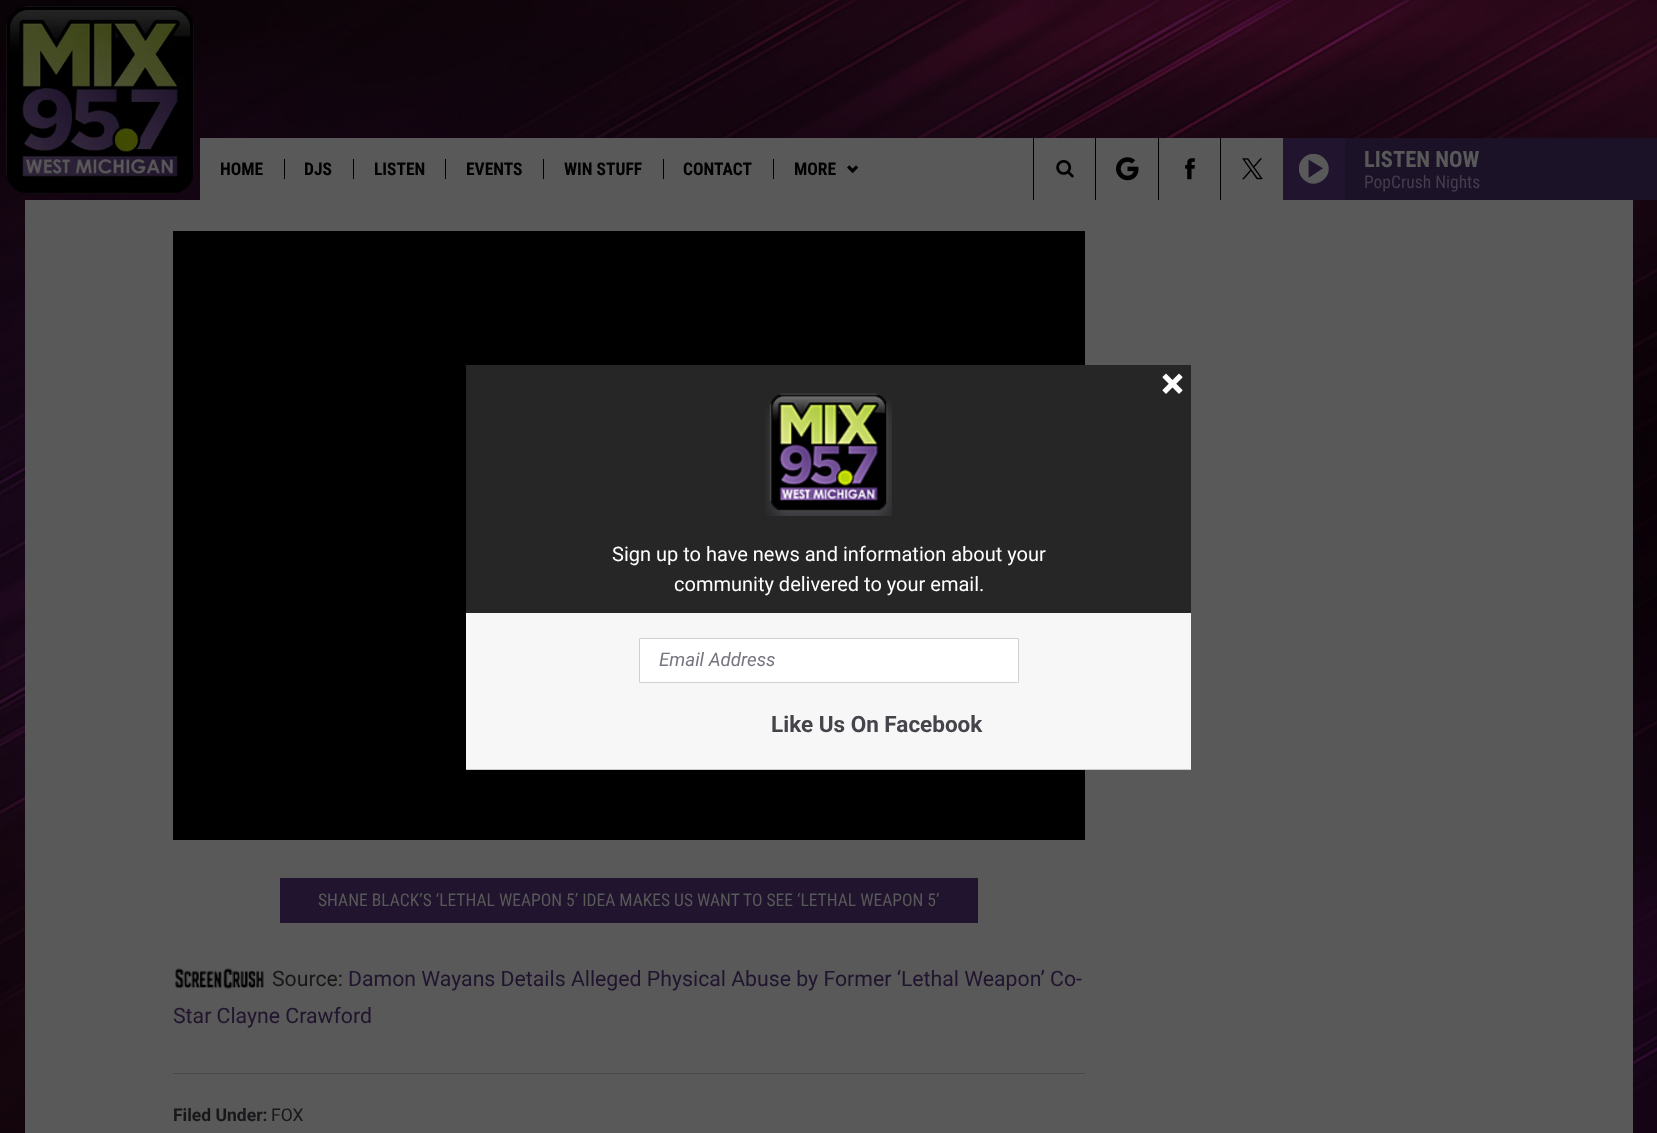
async function draw(canvas) {
  canvas.width = 1657
  canvas.height = 1133
  const ctx = canvas.getContext('2d')
  ctx.miterLimit = 4
  ctx.fontKerning = 'normal'
  async function loadImage(src) {
    const img = new Image()
    img.src = src
    await img.decode()
    return img
  }

  ctx.fillStyle = '#fff'
  ctx.fillRect(0, 0, 1657, 1133)
  ctx.drawImage(await loadImage('image0.png'), 0, 200, 1657, 933)
  ctx.drawImage(await loadImage('image1.png'), 0, 0, 1657, 200)
  ctx.drawImage(await loadImage('image2.png'), 6, 6, 188, 188)
  ctx.fillStyle = '#595959'
  ctx.fillRect(200, 138, 1083, 62)
  ctx.font = 'bold 17.5px Roboto Condensed'
  ctx.fillStyle = '#000'
  ctx.fillText('HOME', 220, 175)
  ctx.fillRect(284, 159, 1, 20)
  ctx.fillText('DJS', 304, 175)
  ctx.fillRect(353, 159, 1, 20)
  ctx.fillText('LISTEN', 374, 175)
  ctx.fillRect(445, 159, 1, 20)
  ctx.fillText('EVENTS', 466, 175)
  ctx.fillRect(543, 159, 1, 20)
  ctx.fillText('WIN STUFF', 564, 175)
  ctx.fillRect(663, 159, 1, 20)
  ctx.fillText('CONTACT', 683, 175)
  ctx.fillRect(773, 159, 1, 20)
  ctx.fillText('MORE', 794, 175)
  ctx.drawImage(await loadImage('image3.png'), 847, 165, 11, 9)
  ctx.fillRect(1033, 138, 1, 62)
  ctx.drawImage(await loadImage('image4.png'), 1056, 160, 18, 18)
  ctx.fillRect(1095, 138, 1, 62)
  ctx.drawImage(await loadImage('image5.png'), 1116, 157, 23, 24)
  ctx.fillRect(1158, 138, 1, 62)
  ctx.drawImage(await loadImage('image6.png'), 1185, 158, 10, 22)
  ctx.fillRect(1220, 138, 1, 62)
  ctx.drawImage(await loadImage('image7.png'), 1242, 158, 21, 22)
  ctx.fillStyle = '#20142e'
  ctx.fillRect(1283, 138, 62, 62)
  ctx.drawImage(await loadImage('image8.png'), 1299, 154, 30, 30)
  ctx.fillStyle = '#1c1228'
  ctx.fillRect(1345, 138, 312, 62)
  ctx.font = 'bold 22.5px Roboto Condensed'
  ctx.fillStyle = '#595959'
  ctx.fillText('LISTEN NOW', 1364, 167)
  ctx.font = '17.5px Roboto Condensed'
  ctx.fillStyle = '#443d4d'
  ctx.fillText('PopCrush Nights', 1364, 188)
  ctx.fillStyle = '#595959'
  ctx.fillRect(25, 200, 1608, 933)
  ctx.fillStyle = '#000'
  ctx.fillRect(173, 231, 912, 609)
  ctx.fillStyle = '#f7f7f7'
  ctx.fillRect(466, 613, 725, 156)
  ctx.fillStyle = '#262626'
  ctx.fillRect(466, 365, 725, 248)
  ctx.drawImage(await loadImage('image9.png'), 1162, 373, 21, 21)
  ctx.drawImage(await loadImage('image10.png'), 765, 393, 127, 123)
  ctx.font = '20px Roboto'
  ctx.fillStyle = '#fff'
  ctx.fillText('Sign up to have news and information about your', 612, 561)
  ctx.fillText('community delivered to your email.', 674, 591)
  ctx.beginPath()
  ctx.rect(639.5, 638.5, 379, 44)
  ctx.fill()
  ctx.strokeStyle = '#d1d0d2'
  ctx.stroke()
  ctx.font = 'italic 18.75px Roboto'
  ctx.fillStyle = '#77757f'
  ctx.fillText('Email Address', 659, 666)
  ctx.fillStyle = '#cbcacc'
  ctx.fillRect(466, 769, 725, 1)
  ctx.font = 'bold 22.5px Roboto'
  ctx.fillStyle = '#45444a'
  ctx.fillText('Like Us On Facebook', 771, 732)
  ctx.fillStyle = '#20142e'
  ctx.fillRect(280, 878, 698, 45)
  ctx.font = '17.5px Roboto Condensed'
  ctx.fillStyle = '#595959'
  ctx.fillText('SHANE BLACK’S ‘LETHAL WEAPON 5’ IDEA MAKES US WANT TO SEE ‘LETHAL WEAPON 5’', 318, 906)
  ctx.drawImage(await loadImage('image11.png'), 174, 968, 90, 21)
  ctx.font = '21.25px Roboto'
  ctx.fillStyle = '#18181a'
  ctx.fillText('Source:', 272, 986)
  ctx.fillStyle = '#20142e'
  ctx.fillText('Damon Wayans Details Alleged Physical Abuse by Former ‘Lethal Weapon’ Co-', 348, 986)
  ctx.fillText('Star Clayne Crawford', 173, 1023)
  ctx.fillStyle = '#49494a'
  ctx.fillRect(173, 1073, 912, 1)
  ctx.font = 'bold 17.5px Roboto'
  ctx.fillStyle = '#18181a'
  ctx.fillText('Filed Under:', 173, 1121)
  ctx.font = '17.5px Roboto'
  ctx.fillText('FOX', 271, 1121)
}

draw(document.querySelector('canvas'))
